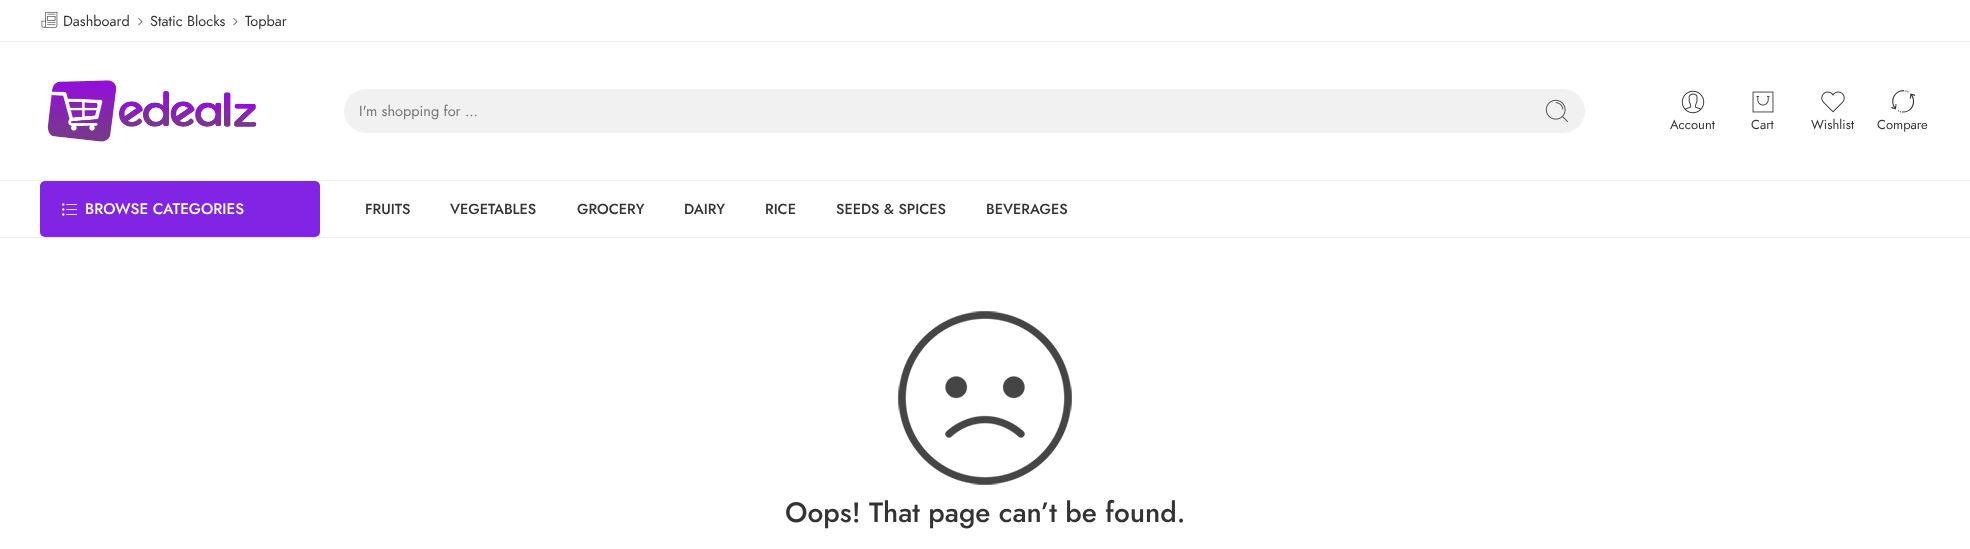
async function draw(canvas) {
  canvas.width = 1970
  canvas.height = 549
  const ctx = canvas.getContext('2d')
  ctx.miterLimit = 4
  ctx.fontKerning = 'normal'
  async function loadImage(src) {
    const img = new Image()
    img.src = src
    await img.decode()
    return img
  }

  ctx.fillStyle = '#fff'
  ctx.fillRect(0, 0, 1970, 549)
  ctx.fillStyle = '#ececec'
  ctx.fillRect(0, 41, 1970, 1)
  ctx.drawImage(await loadImage('image0.png'), 41, 11, 17, 17)
  ctx.font = '14.5px Jost'
  ctx.fillStyle = '#333'
  ctx.fillText('Dashboard', 63, 26)
  ctx.drawImage(await loadImage('image1.png'), 138, 18, 5, 8)
  ctx.fillText('Static Blocks', 150, 26)
  ctx.drawImage(await loadImage('image1.png'), 233, 18, 5, 8)
  ctx.fillText('Topbar', 245, 26)
  ctx.drawImage(await loadImage('image2.png'), 47, 80, 210, 62)
  ctx.fillStyle = '#f1f1f1'
  ctx.beginPath()
  ctx.roundRect(344, 89, 1241, 44, 22)
  ctx.fill()
  ctx.fillStyle = '#757575'
  ctx.fillText('I\'m shopping for ...', 359, 116)
  ctx.drawImage(await loadImage('image3.png'), 1545, 99, 23, 24)
  ctx.drawImage(await loadImage('image4.png'), 1681, 90, 24, 24)
  ctx.font = '13px Jost'
  ctx.fillStyle = '#333'
  ctx.fillText('Account', 1670, 129)
  ctx.drawImage(await loadImage('image5.png'), 1752, 91, 22, 22)
  ctx.fillText('Cart', 1751, 129)
  ctx.drawImage(await loadImage('image6.png'), 1821, 91, 24, 22)
  ctx.fillText('Wishlist', 1811, 129)
  ctx.drawImage(await loadImage('image7.png'), 1891, 90, 25, 23)
  ctx.fillText('Compare', 1877, 129)
  ctx.fillStyle = '#efefef'
  ctx.fillRect(0, 180, 1970, 1)
  ctx.fillRect(0, 237, 1970, 1)
  ctx.fillStyle = '#8224e3'
  ctx.beginPath()
  ctx.roundRect(40, 181, 280, 56, 5)
  ctx.fill()
  ctx.drawImage(await loadImage('image8.png'), 62, 203, 15, 13)
  ctx.font = '500 15.25px Jost'
  ctx.fillStyle = '#fff'
  ctx.fillText('BROWSE CATEGORIES', 85, 214)
  ctx.font = '500 14.5px Jost'
  ctx.fillStyle = '#333'
  ctx.fillText('FRUITS', 365, 214)
  ctx.fillText('VEGETABLES', 450, 214)
  ctx.fillText('GROCERY', 577, 214)
  ctx.fillText('DAIRY', 684, 214)
  ctx.fillText('RICE', 765, 214)
  ctx.fillText('SEEDS & SPICES', 836, 214)
  ctx.fillText('BEVERAGES', 986, 214)
  ctx.drawImage(await loadImage('image9.png'), 898, 311, 174, 174)
  ctx.font = '500 28px Jost'
  ctx.fillText('Oops! That page can’t be found.', 785, 522)
}

draw(document.querySelector('canvas'))
